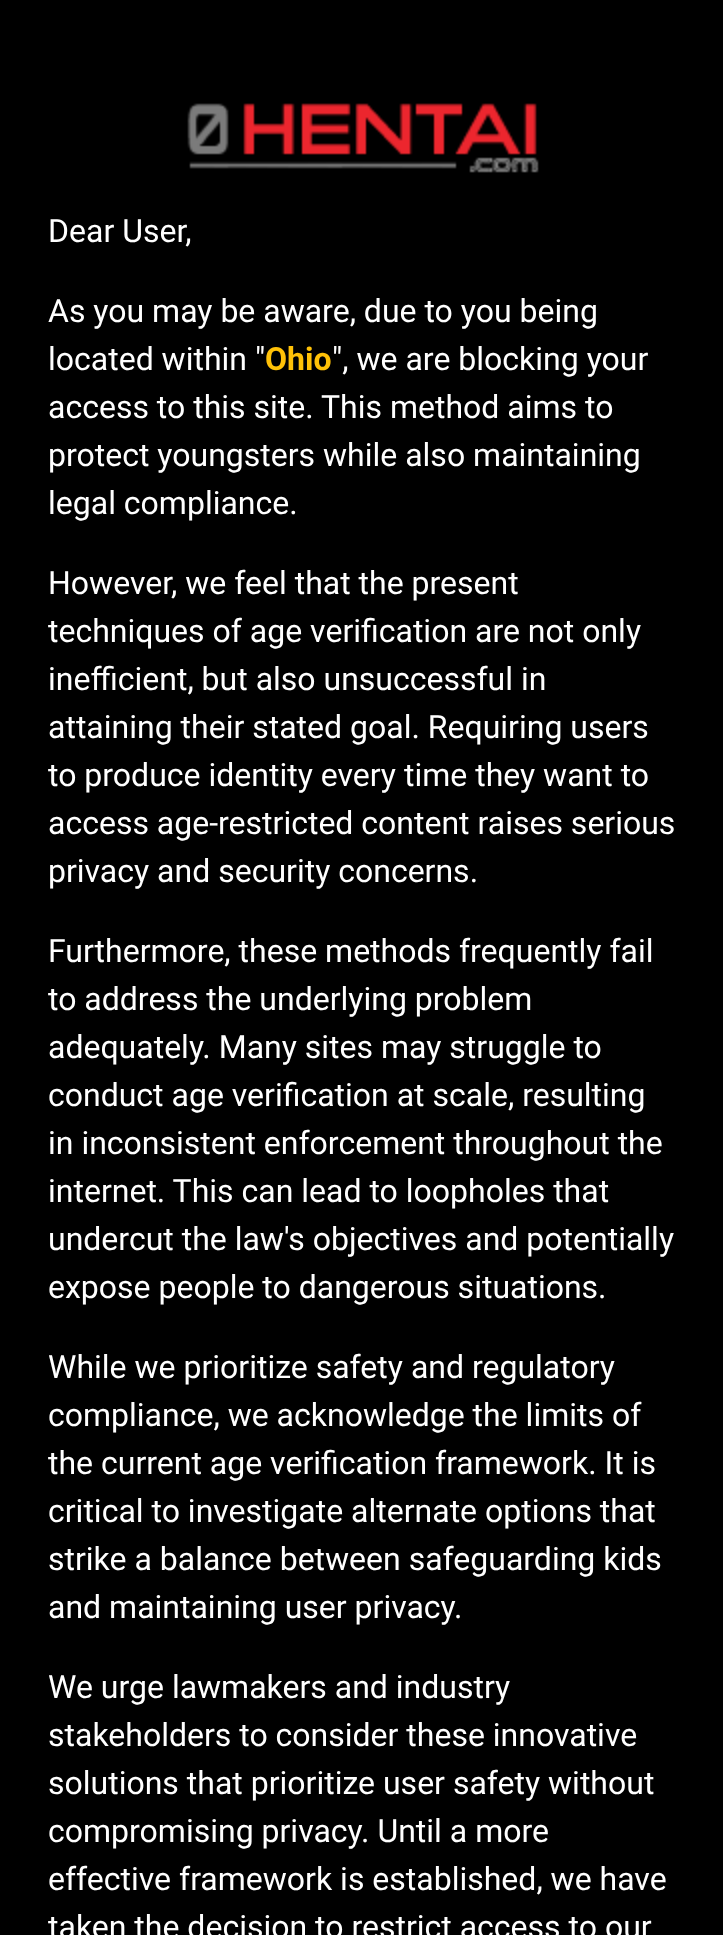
async function draw(canvas) {
  canvas.width = 723
  canvas.height = 1935
  const ctx = canvas.getContext('2d')
  ctx.miterLimit = 4
  ctx.fontKerning = 'normal'
  async function loadImage(src) {
    const img = new Image()
    img.src = src
    await img.decode()
    return img
  }

  ctx.fillStyle = '#000'
  ctx.fillRect(0, 0, 723, 1935)
  ctx.drawImage(await loadImage('image0.png'), 187, 103, 352, 70)
  ctx.font = '32px Roboto'
  ctx.fillStyle = '#fff'
  ctx.fillText('Dear User,', 48, 242)
  ctx.fillText('As you may be aware, due to you being', 48, 322)
  ctx.fillText('located within "', 48, 370)
  ctx.font = 'bold 32px Roboto'
  ctx.fillStyle = '#ffc107'
  ctx.fillText('Ohio', 265, 370)
  ctx.font = '32px Roboto'
  ctx.fillStyle = '#fff'
  ctx.fillText('", we are blocking your', 332, 370)
  ctx.fillText('access to this site. This method aims to', 48, 418)
  ctx.fillText('protect youngsters while also maintaining', 48, 466)
  ctx.fillText('legal compliance.', 48, 514)
  ctx.fillText('However, we feel that the present', 48, 594)
  ctx.fillText('techniques of age verification are not only', 48, 642)
  ctx.fillText('inefficient, but also unsuccessful in', 48, 690)
  ctx.fillText('attaining their stated goal. Requiring users', 48, 738)
  ctx.fillText('to produce identity every time they want to', 48, 786)
  ctx.fillText('access age-restricted content raises serious', 48, 834)
  ctx.fillText('privacy and security concerns.', 48, 882)
  ctx.fillText('Furthermore, these methods frequently fail', 48, 962)
  ctx.fillText('to address the underlying problem', 48, 1010)
  ctx.fillText('adequately. Many sites may struggle to', 48, 1058)
  ctx.fillText('conduct age verification at scale, resulting', 48, 1106)
  ctx.fillText('in inconsistent enforcement throughout the', 48, 1154)
  ctx.fillText('internet. This can lead to loopholes that', 48, 1202)
  ctx.fillText('undercut the law\'s objectives and potentially', 48, 1250)
  ctx.fillText('expose people to dangerous situations.', 48, 1298)
  ctx.fillText('While we prioritize safety and regulatory', 48, 1378)
  ctx.fillText('compliance, we acknowledge the limits of', 48, 1426)
  ctx.fillText('the current age verification framework. It is', 48, 1474)
  ctx.fillText('critical to investigate alternate options that', 48, 1522)
  ctx.fillText('strike a balance between safeguarding kids', 48, 1570)
  ctx.fillText('and maintaining user privacy.', 48, 1618)
  ctx.fillText('We urge lawmakers and industry', 48, 1698)
  ctx.fillText('stakeholders to consider these innovative', 48, 1746)
  ctx.fillText('solutions that prioritize user safety without', 48, 1794)
  ctx.fillText('compromising privacy. Until a more', 48, 1842)
  ctx.fillText('effective framework is established, we have', 48, 1890)
  ctx.fillText('taken the decision to restrict access to our', 48, 1938)
}

draw(document.querySelector('canvas'))
